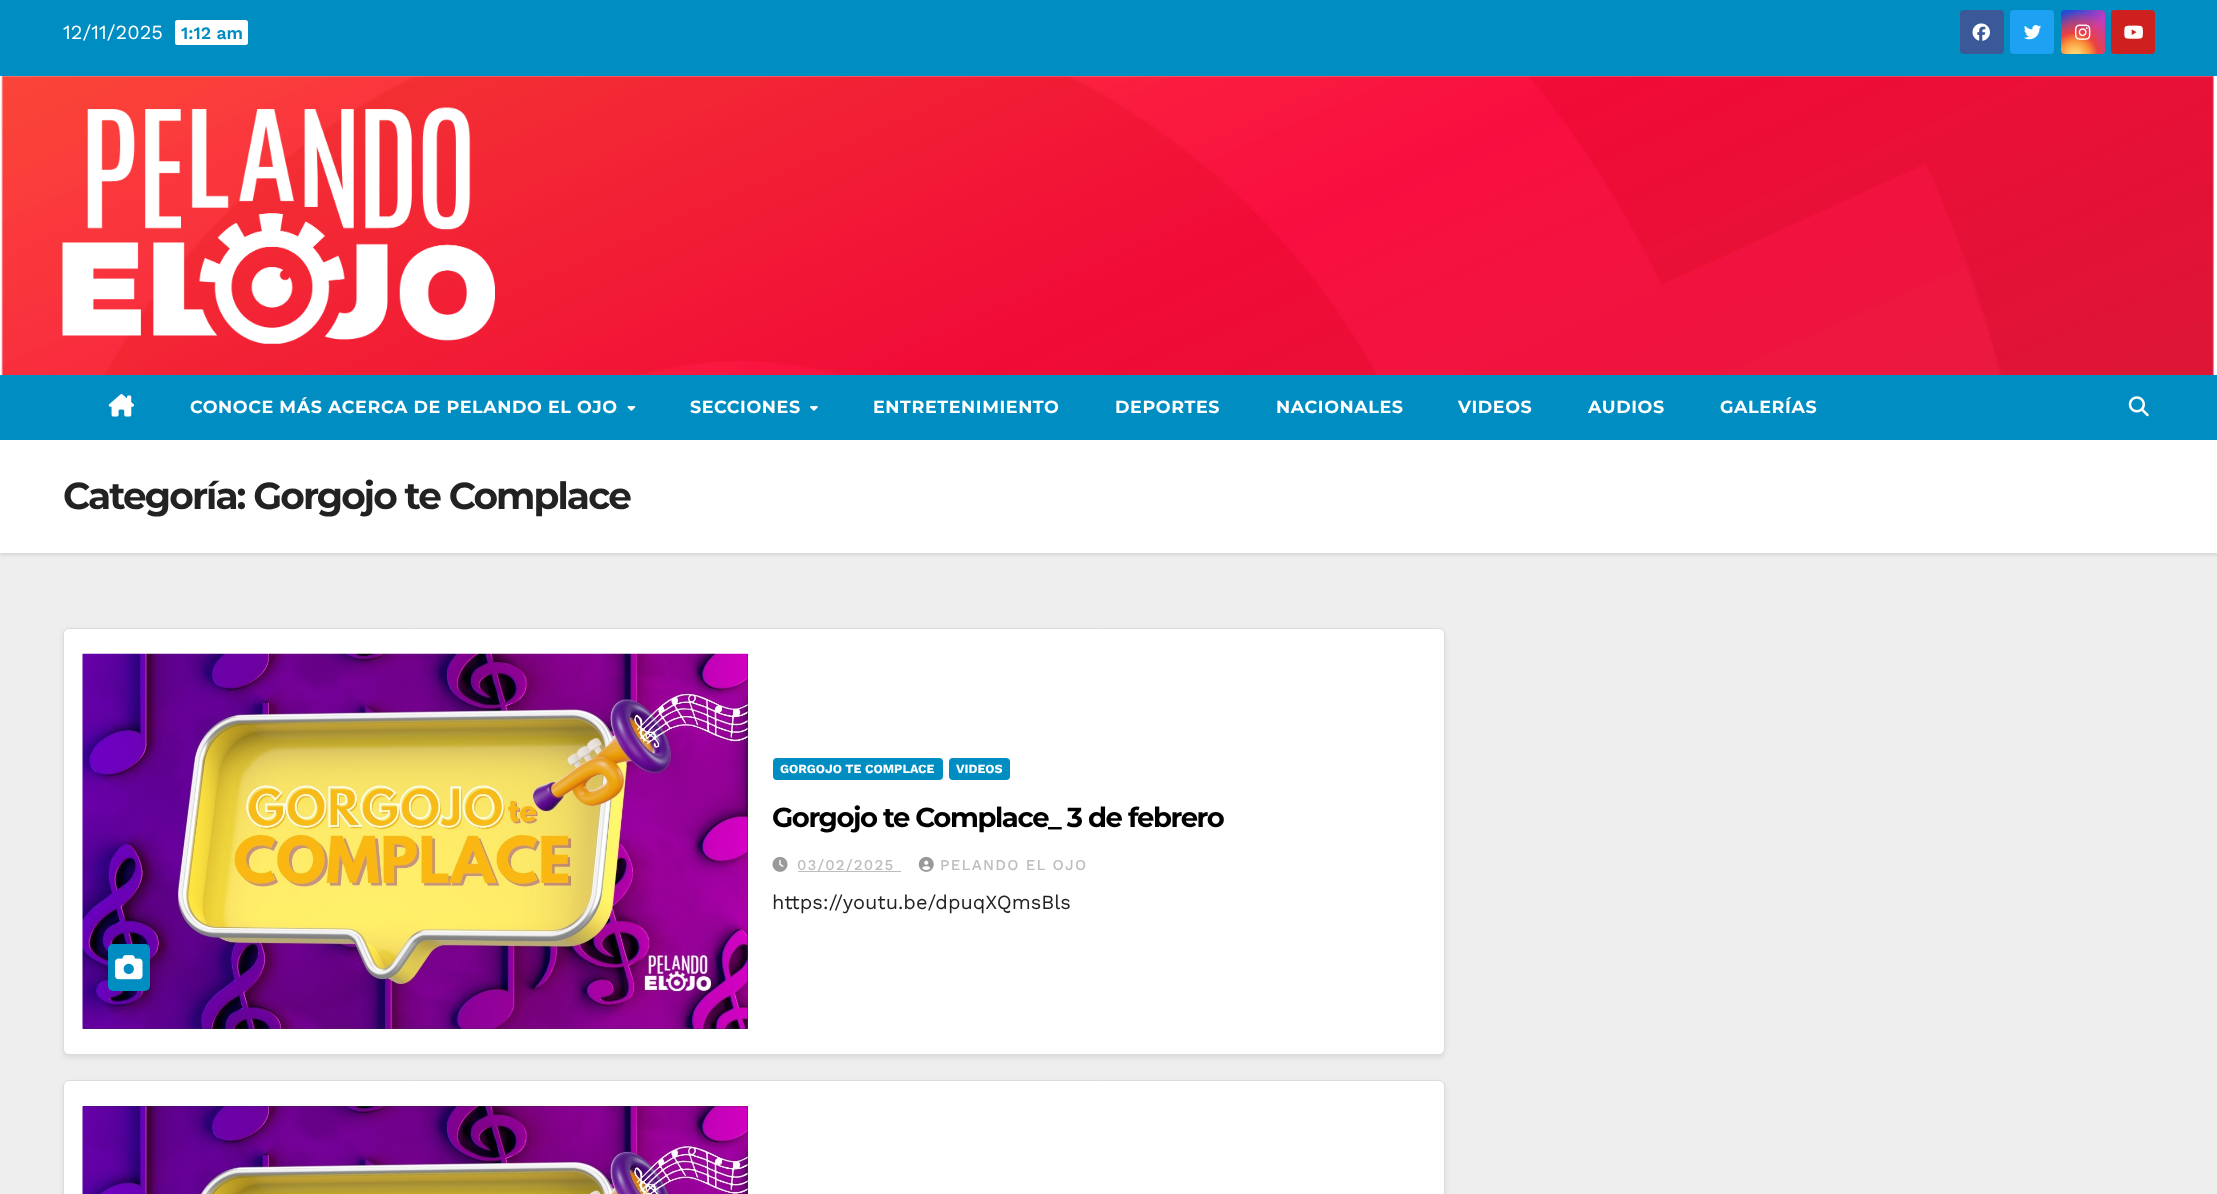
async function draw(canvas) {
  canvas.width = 2217
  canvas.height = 1194
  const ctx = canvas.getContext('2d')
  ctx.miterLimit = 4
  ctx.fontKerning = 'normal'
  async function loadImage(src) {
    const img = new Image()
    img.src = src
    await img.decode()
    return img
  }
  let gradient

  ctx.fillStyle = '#eee'
  ctx.fillRect(0, 0, 2217, 1194)
  ctx.fillStyle = '#008ec2'
  ctx.fillRect(0, 0, 2217, 76)
  ctx.font = '20px Work Sans'
  ctx.fillStyle = '#fff'
  ctx.fillText('12/11/2025', 63, 39)
  ctx.beginPath()
  ctx.roundRect(175, 20, 73, 25, 2.5)
  ctx.fill()
  ctx.font = '600 17.5px Work Sans'
  ctx.fillStyle = '#008ec2'
  ctx.fillText('1:12 am', 181, 39)
  ctx.fillStyle = '#3b5998'
  ctx.beginPath()
  ctx.roundRect(1960, 10, 44, 44, 4)
  ctx.fill()
  ctx.drawImage(await loadImage('image0.png'), 1972, 23, 18, 18)
  ctx.fillStyle = '#1da1f2'
  ctx.beginPath()
  ctx.roundRect(2010, 10, 44, 44, 4)
  ctx.fill()
  ctx.drawImage(await loadImage('image1.png'), 2024, 25, 18, 15)
  gradient = ctx.createLinearGradient(2061, 10, 2105, 54)
  gradient.addColorStop(0.12, '#234bd7')
  gradient.addColorStop(0.58, '#c33cbe')
  ctx.fillStyle = gradient
  ctx.beginPath()
  ctx.roundRect(2061, 10, 44, 44, 4)
  ctx.fill()
  gradient = ctx.createRadialGradient(2075, 56, 0, 2075, 56, 55)
  gradient.addColorStop(0, '#ffe17d')
  gradient.addColorStop(0.1, '#ffcd69')
  gradient.addColorStop(0.28, '#fa9137')
  gradient.addColorStop(0.42, '#eb4141')
  gradient.addColorStop(0.82, '#eb414100')
  ctx.fillStyle = gradient
  ctx.beginPath()
  ctx.roundRect(2061, 10, 44, 44, 4)
  ctx.fill()
  ctx.drawImage(await loadImage('image2.png'), 2075, 24, 16, 16)
  ctx.fillStyle = '#cd201f'
  ctx.beginPath()
  ctx.roundRect(2111, 10, 44, 44, 4)
  ctx.fill()
  ctx.drawImage(await loadImage('image3.png'), 2124, 25, 19, 14)
  ctx.drawImage(await loadImage('image4.png'), 0, 76, 2217, 299)
  ctx.drawImage(await loadImage('image5.png'), 62, 107, 433, 237)
  ctx.fillStyle = '#00000026'
  ctx.filter = 'blur(2px)'
  ctx.beginPath()
  ctx.rect(0, 441, 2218, 113)
  ctx.fill()
  ctx.filter = 'none'
  ctx.fillStyle = '#008ec2'
  ctx.fillRect(0, 375, 2217, 65)
  ctx.drawImage(await loadImage('image6.png'), 108, 394, 26, 23)
  ctx.letterSpacing = '0.6px'
  ctx.font = 'bold 17.5px Montserrat'
  ctx.fillStyle = '#fff'
  ctx.fillText('CONOCE MÁS ACERCA DE PELANDO EL OJO', 190, 413)
  ctx.drawImage(await loadImage('image7.png'), 627, 406, 9, 5)
  ctx.fillText('SECCIONES', 690, 413)
  ctx.drawImage(await loadImage('image8.png'), 810, 406, 8, 5)
  ctx.fillText('ENTRETENIMIENTO', 873, 413)
  ctx.fillText('DEPORTES', 1115, 413)
  ctx.fillText('NACIONALES', 1276, 413)
  ctx.fillText('VIDEOS', 1458, 413)
  ctx.fillText('AUDIOS', 1588, 413)
  ctx.fillText('GALERÍAS', 1720, 413)
  ctx.drawImage(await loadImage('image9.png'), 2128, 396, 21, 21)
  ctx.fillRect(0, 440, 2217, 113)
  ctx.letterSpacing = '-1.9px'
  ctx.font = 'bold 37.5px Montserrat'
  ctx.fillStyle = '#222'
  ctx.fillText('Categoría: Gorgojo te Complace', 63, 509)
  ctx.fillStyle = '#00000014'
  ctx.filter = 'blur(2.5px)'
  ctx.beginPath()
  ctx.roundRect(63, 630, 1382, 428, 6)
  ctx.fill()
  ctx.filter = 'none'
  ctx.fillStyle = '#fff'
  ctx.beginPath()
  ctx.roundRect(63.5, 628.5, 1381, 426, 5.5)
  ctx.fill()
  ctx.strokeStyle = '#dddcdc'
  ctx.stroke()
  ctx.fillStyle = '#333'
  ctx.fillRect(83, 654, 665, 375)
  ctx.drawImage(await loadImage('image10.png'), 82, 653, 666, 376)
  ctx.fillStyle = '#008ec2'
  ctx.beginPath()
  ctx.roundRect(108, 944, 42, 47, 5)
  ctx.fill()
  ctx.drawImage(await loadImage('image11.png'), 115, 955, 28, 25)
  ctx.beginPath()
  ctx.roundRect(773, 758, 170, 22, 4)
  ctx.fill()
  ctx.letterSpacing = '0px'
  ctx.font = 'bold 12.5px Work Sans'
  ctx.fillStyle = '#fff'
  ctx.fillText('GORGOJO TE COMPLACE', 780, 773)
  ctx.fillStyle = '#008ec2'
  ctx.beginPath()
  ctx.roundRect(949, 758, 61, 22, 4)
  ctx.fill()
  ctx.fillStyle = '#fff'
  ctx.fillText('VIDEOS', 956, 773)
  ctx.letterSpacing = '-1.4px'
  ctx.font = 'bold 27.5px Montserrat'
  ctx.fillStyle = '#000'
  ctx.fillText('Gorgojo te Complace_ 3 de febrero', 772, 827)
  ctx.drawImage(await loadImage('image12.png'), 772, 856, 16, 16)
  ctx.fillStyle = '#bdbdbd'
  ctx.fillRect(798, 871, 103, 1)
  ctx.letterSpacing = '1.25px'
  ctx.font = '500 15px Work Sans'
  ctx.fillText('03/02/2025', 797, 870)
  ctx.drawImage(await loadImage('image13.png'), 918, 856, 16, 16)
  ctx.fillText('PELANDO EL OJO', 940, 870)
  ctx.letterSpacing = '0px'
  ctx.font = '20px Work Sans'
  ctx.fillStyle = '#222'
  ctx.fillText('https://youtu.be/dpuqXQmsBls', 772, 909)
  ctx.fillStyle = '#00000014'
  ctx.filter = 'blur(2.5px)'
  ctx.beginPath()
  ctx.roundRect(63, 1083, 1382, 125, 6)
  ctx.fill()
  ctx.filter = 'none'
  ctx.fillStyle = '#fff'
  ctx.beginPath()
  ctx.roundRect(63.5, 1080.5, 1381, 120, 5.5)
  ctx.fill()
  ctx.stroke()
  ctx.fillStyle = '#333'
  ctx.fillRect(83, 1106, 665, 88)
  ctx.drawImage(await loadImage('image14.png'), 82, 1106, 666, 88)
}

draw(document.querySelector('canvas'))
